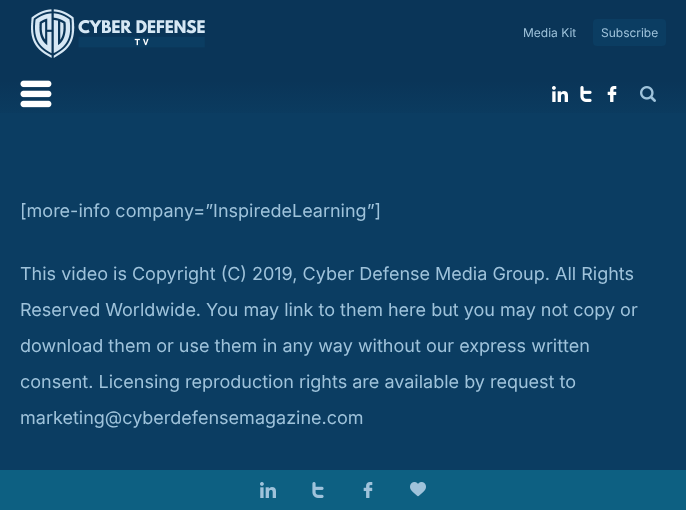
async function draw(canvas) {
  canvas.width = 686
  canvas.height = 510
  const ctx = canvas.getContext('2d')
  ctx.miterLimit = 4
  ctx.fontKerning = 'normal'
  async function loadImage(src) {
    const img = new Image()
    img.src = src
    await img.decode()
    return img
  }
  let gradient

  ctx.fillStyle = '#0b3d62'
  ctx.fillRect(0, 0, 686, 510)
  gradient = ctx.createLinearGradient(343, 124, 343, 0)
  gradient.addColorStop(0, '#0b3d62')
  gradient.addColorStop(0.35, '#0a3558')
  ctx.fillStyle = gradient
  ctx.fillRect(0, 0, 686, 113)
  ctx.drawImage(await loadImage('image0.png'), 31, 9, 174, 49)
  ctx.font = '12px Inter'
  ctx.fillStyle = '#9fc3db'
  ctx.fillText('Media Kit', 523, 37)
  ctx.fillStyle = '#0b3d62'
  ctx.beginPath()
  ctx.roundRect(593, 19, 73, 27, 4)
  ctx.fill()
  ctx.fillStyle = '#9fc3db'
  ctx.fillText('Subscribe', 601, 37)
  ctx.drawImage(await loadImage('image1.png'), 20, 80, 32, 28)
  ctx.drawImage(await loadImage('image2.png'), 552, 86, 16, 16)
  ctx.drawImage(await loadImage('image3.png'), 580, 86, 12, 16)
  ctx.drawImage(await loadImage('image4.png'), 607, 86, 10, 16)
  ctx.drawImage(await loadImage('image5.png'), 640, 86, 16, 16)
  ctx.font = '18px Inter'
  ctx.fillText('[more-info company=”InspiredeLearning”]', 20, 217)
  ctx.fillText('This video is Copyright (C) 2019, Cyber Defense Media Group. All Rights', 20, 280)
  ctx.fillText('Reserved Worldwide. You may link to them here but you may not copy or', 20, 316)
  ctx.fillText('download them or use them in any way without our express written', 20, 352)
  ctx.fillText('consent. Licensing reproduction rights are available by request to', 20, 388)
  ctx.fillText('marketing@cyberdefensemagazine.com', 20, 424)
  ctx.fillStyle = '#0d6082'
  ctx.fillRect(0, 470, 686, 40)
  ctx.drawImage(await loadImage('image6.png'), 260, 482, 16, 16)
  ctx.drawImage(await loadImage('image7.png'), 312, 482, 12, 16)
  ctx.drawImage(await loadImage('image8.png'), 363, 482, 10, 16)
  ctx.drawImage(await loadImage('image9.png'), 410, 482, 16, 15)
}

draw(document.querySelector('canvas'))
